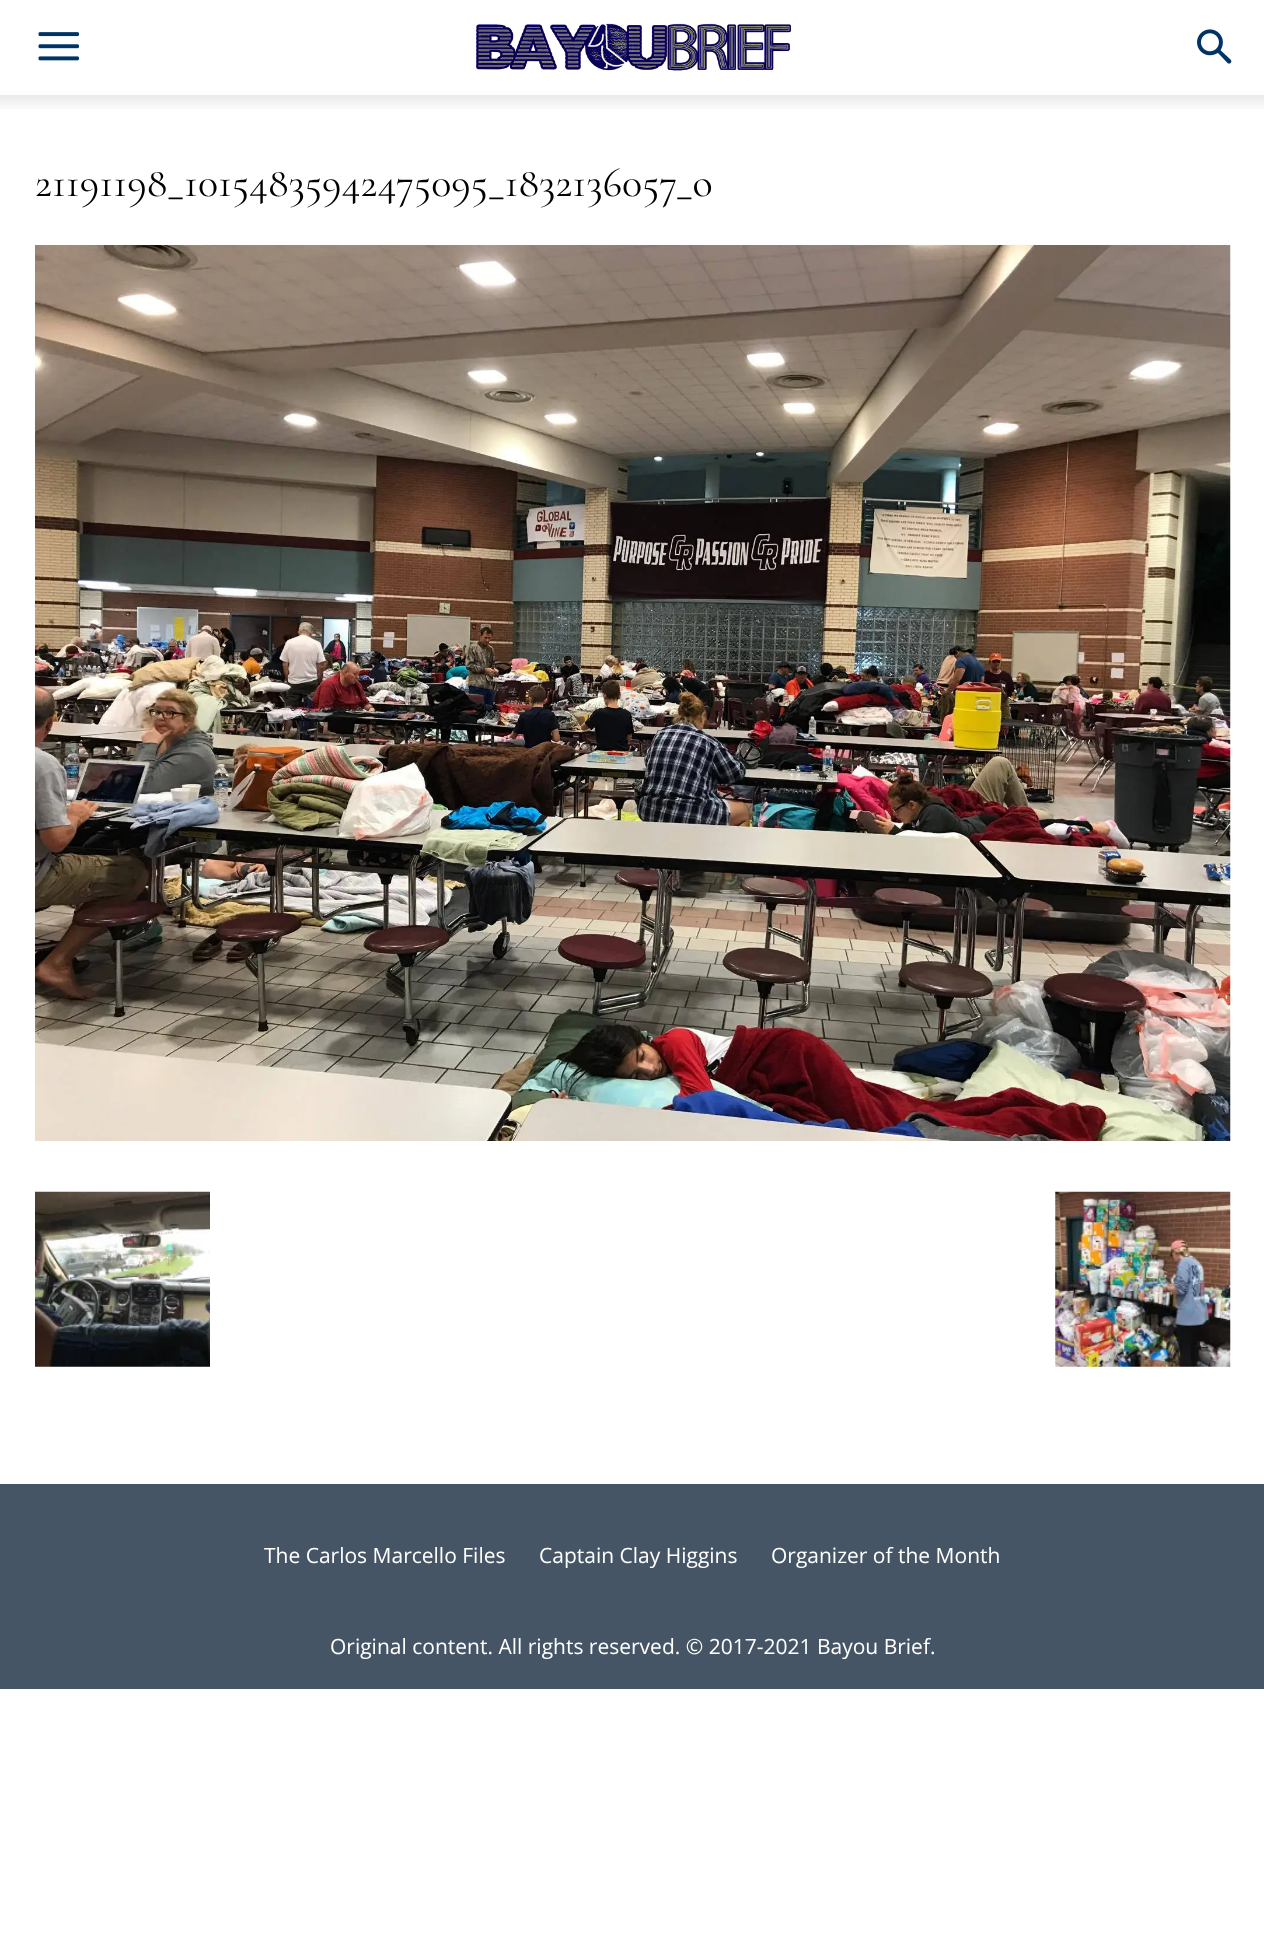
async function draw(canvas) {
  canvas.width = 1264
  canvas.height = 1934
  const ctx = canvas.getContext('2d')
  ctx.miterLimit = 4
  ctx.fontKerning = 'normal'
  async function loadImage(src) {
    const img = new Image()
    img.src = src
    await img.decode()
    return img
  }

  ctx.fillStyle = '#fff'
  ctx.fillRect(0, 0, 1264, 1934)
  ctx.drawImage(await loadImage('image0.png'), 38, 32, 41, 29)
  ctx.drawImage(await loadImage('image1.png'), 476, 23, 315, 48)
  ctx.drawImage(await loadImage('image2.png'), 1197, 29, 35, 35)
  ctx.drawImage(await loadImage('image3.png'), 0, 95, 1264, 14)
  ctx.font = '42px Cormorant Garamond'
  ctx.fillStyle = '#000'
  ctx.fillText('21191198_10154835942475095_1832136057_o', 35, 196)
  ctx.drawImage(await loadImage('image4.png'), 35, 245, 1196, 896)
  ctx.drawImage(await loadImage('image5.png'), 35, 1191, 175, 176)
  ctx.drawImage(await loadImage('image6.png'), 1055, 1191, 176, 176)
  ctx.fillStyle = '#465566'
  ctx.fillRect(0, 1484, 1264, 205)
  ctx.font = '21px Open Sans'
  ctx.fillStyle = '#fff'
  ctx.fillText('The Carlos Marcello Files', 264, 1563)
  ctx.fillText('Captain Clay Higgins', 539, 1563)
  ctx.fillText('Organizer of the Month', 771, 1563)
  ctx.fillText('Original content. All rights reserved. © 2017-2021 Bayou Brief.', 330, 1654)
}

draw(document.querySelector('canvas'))
